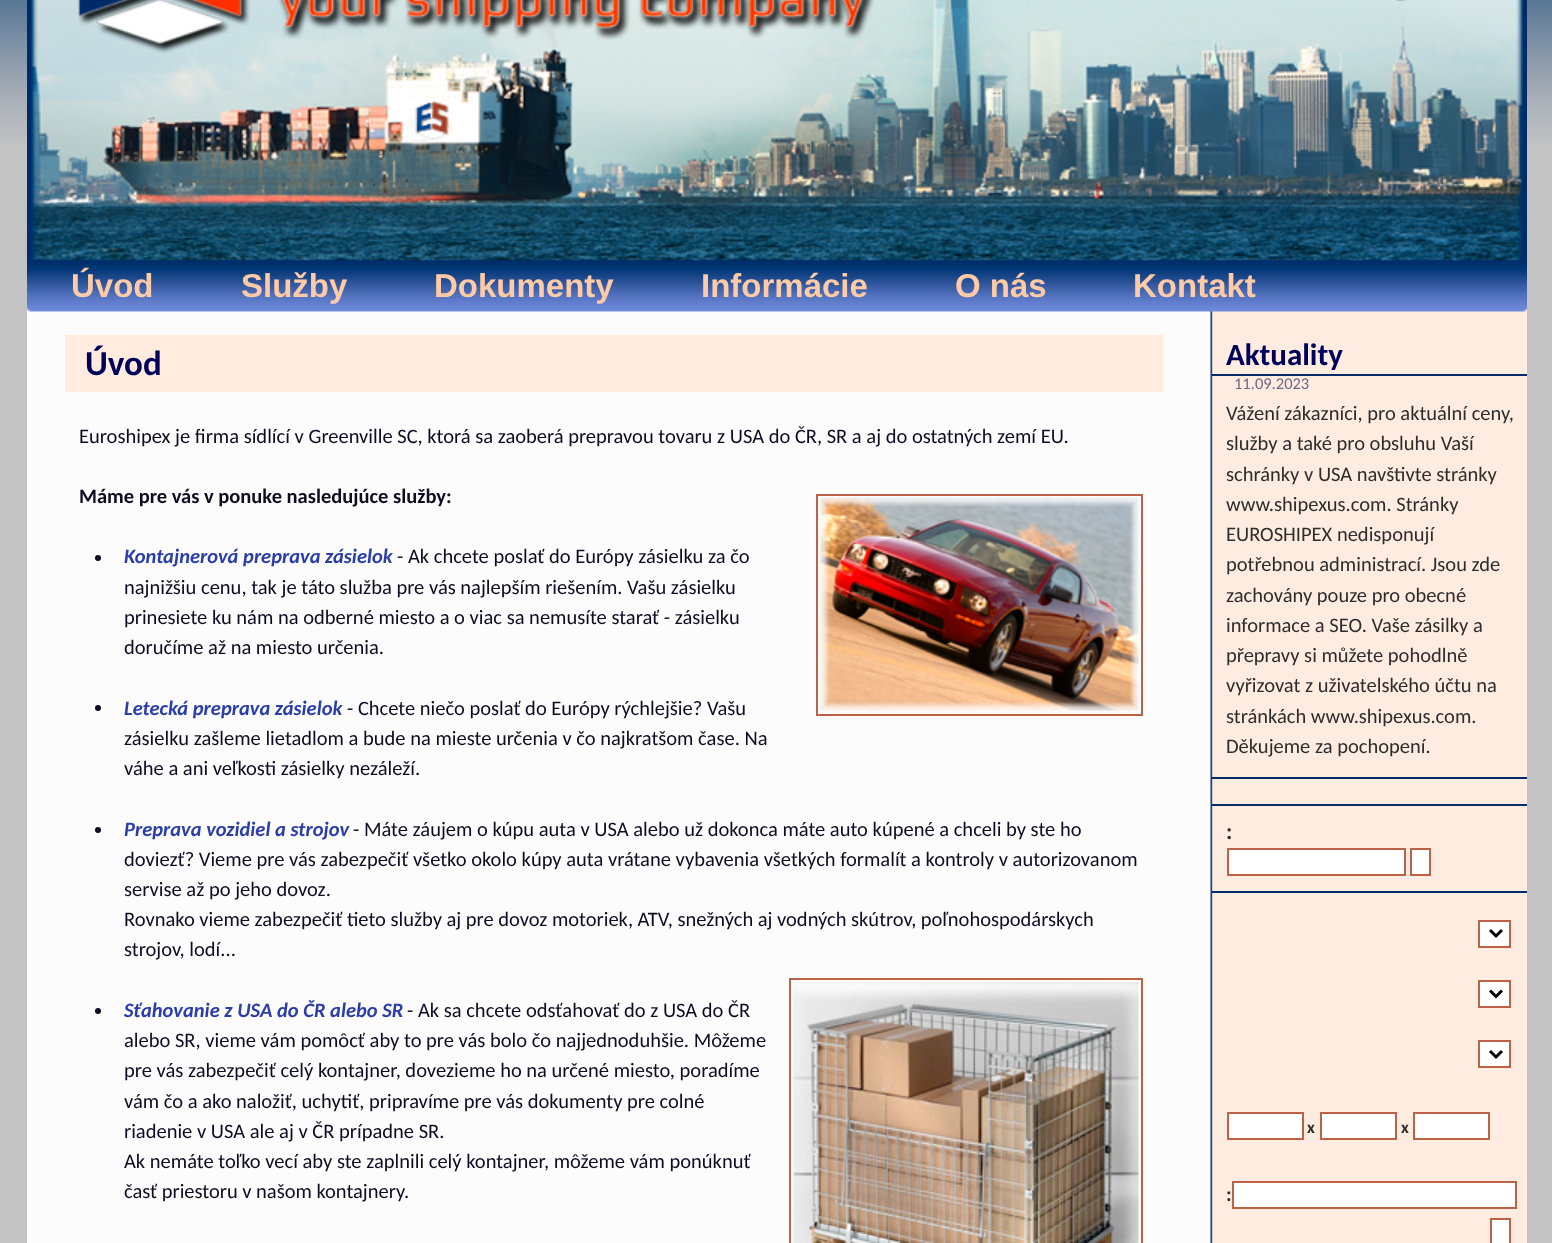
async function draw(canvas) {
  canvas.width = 1552
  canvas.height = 1243
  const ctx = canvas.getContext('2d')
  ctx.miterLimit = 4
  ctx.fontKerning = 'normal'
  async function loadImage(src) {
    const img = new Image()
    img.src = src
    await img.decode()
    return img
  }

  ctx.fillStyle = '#c4c3c3'
  ctx.fillRect(0, 0, 1552, 1243)
  ctx.drawImage(await loadImage('image0.png'), 0, 0, 1552, 144)
  ctx.fillStyle = '#fcfcfc'
  ctx.fillRect(27, 306, 1183, 937)
  ctx.drawImage(await loadImage('image1.png'), 1210, 306, 317, 937)
  ctx.fillStyle = '#002b69'
  ctx.fillRect(27, 0, 1500, 261)
  ctx.drawImage(await loadImage('image2.png'), 31, 0, 1492, 261)
  ctx.drawImage(await loadImage('image3.png'), 27, 260, 1500, 52)
  ctx.font = 'bold 33px Liberation Sans'
  ctx.fillStyle = '#ffcba7'
  ctx.fillText('Úvod', 71, 297)
  ctx.fillText('Služby', 241, 297)
  ctx.fillText('Dokumenty', 434, 297)
  ctx.fillText('Informácie', 701, 297)
  ctx.fillText('O nás', 955, 297)
  ctx.fillText('Kontakt', 1133, 297)
  ctx.fillStyle = '#ffecdf'
  ctx.fillRect(65, 335, 1098, 57)
  ctx.font = 'bold 35px Carlito'
  ctx.fillStyle = '#00015a'
  ctx.fillText('Úvod', 85, 375)
  ctx.font = '20.5px Carlito'
  ctx.fillStyle = '#0d0c23'
  ctx.fillText('Euroshipex je firma sídlící v Greenville SC, ktorá sa zaoberá prepravou tovaru z USA do ČR, SR a aj do ostatných zemí EU.', 79, 443)
  ctx.font = 'bold 20.5px Carlito'
  ctx.fillText('Máme pre vás v ponuke nasledujúce služby:', 79, 503)
  ctx.strokeStyle = '#bc6247'
  ctx.lineWidth = 2
  ctx.strokeRect(817, 495, 325, 220)
  ctx.drawImage(await loadImage('image4.png'), 820, 497, 319, 214)
  ctx.beginPath()
  ctx.arc(98, 558, 3, 0, 2 * Math.PI)
  ctx.fill()
  ctx.font = 'italic bold 20.5px Carlito'
  ctx.fillStyle = '#2a3dab'
  ctx.fillText('Kontajnerová preprava zásielok', 124, 563)
  ctx.font = '20.5px Carlito'
  ctx.fillStyle = '#0d0c23'
  ctx.fillText('- Ak chcete poslať do Európy zásielku za čo', 397, 563)
  ctx.fillText('najnižšiu cenu, tak je táto služba pre vás najlepším riešením. Vašu zásielku', 124, 594)
  ctx.fillText('prinesiete ku nám na odberné miesto a o viac sa nemusíte starať - zásielku', 124, 624)
  ctx.fillText('doručíme až na miesto určenia.', 124, 654)
  ctx.beginPath()
  ctx.arc(98, 708, 3, 0, 2 * Math.PI)
  ctx.fill()
  ctx.font = 'italic bold 20.5px Carlito'
  ctx.fillStyle = '#2a3dab'
  ctx.fillText('Letecká preprava zásielok', 124, 715)
  ctx.font = '20.5px Carlito'
  ctx.fillStyle = '#0d0c23'
  ctx.fillText('- Chcete niečo poslať do Európy rýchlejšie? Vašu', 347, 715)
  ctx.fillText('zásielku zašleme lietadlom a bude na mieste určenia v čo najkratšom čase. Na', 124, 745)
  ctx.fillText('váhe a ani veľkosti zásielky nezáleží.', 124, 775)
  ctx.beginPath()
  ctx.arc(98, 830, 3, 0, 2 * Math.PI)
  ctx.fill()
  ctx.font = 'italic bold 20.5px Carlito'
  ctx.fillStyle = '#2a3dab'
  ctx.fillText('Preprava vozidiel a strojov', 124, 836)
  ctx.font = '20.5px Carlito'
  ctx.fillStyle = '#0d0c23'
  ctx.fillText('- Máte záujem o kúpu auta v USA alebo už dokonca máte auto kúpené a chceli by ste ho', 353, 836)
  ctx.fillText('doviezť? Vieme pre vás zabezpečiť všetko okolo kúpy auta vrátane vybavenia všetkých formalít a kontroly v autorizovanom', 124, 866)
  ctx.fillText('servise až po jeho dovoz.', 124, 896)
  ctx.wordSpacing = '-0.1px'
  ctx.fillText('Rovnako vieme zabezpečiť tieto služby aj pre dovoz motoriek, ATV, snežných aj vodných skútrov, poľnohospodárskych', 124, 926)
  ctx.wordSpacing = '0px'
  ctx.fillText('strojov, lodí...', 124, 956)
  ctx.beginPath()
  ctx.arc(98, 1011, 3, 0, 2 * Math.PI)
  ctx.fill()
  ctx.font = 'italic bold 20.5px Carlito'
  ctx.fillStyle = '#2a3dab'
  ctx.fillText('Sťahovanie z USA do ČR alebo SR', 124, 1017)
  ctx.font = '20.5px Carlito'
  ctx.fillStyle = '#0d0c23'
  ctx.fillText('- Ak sa chcete odsťahovať do z USA do ČR', 407, 1017)
  ctx.fillText('alebo SR, vieme vám pomôcť aby to pre vás bolo čo najjednoduhšie. Môžeme', 124, 1047)
  ctx.fillText('pre vás zabezpečiť celý kontajner, dovezieme ho na určené miesto, poradíme', 124, 1077)
  ctx.fillText('vám čo a ako naložiť, uchytiť, pripravíme pre vás dokumenty pre colné', 124, 1108)
  ctx.fillText('riadenie v USA ale aj v ČR prípadne SR.', 124, 1138)
  ctx.fillText('Ak nemáte toľko vecí aby ste zaplnili celý kontajner, môžeme vám ponúknuť', 124, 1168)
  ctx.wordSpacing = '-0.1px'
  ctx.fillText('časť priestoru v našom kontajnery.', 124, 1198)
  ctx.strokeRect(790, 979, 352, 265)
  ctx.drawImage(await loadImage('image5.png'), 793, 982, 346, 261)
  ctx.fillStyle = '#002b69'
  ctx.fillRect(1212, 374, 315, 2)
  ctx.wordSpacing = '0px'
  ctx.font = 'bold 31px Carlito'
  ctx.fillStyle = '#00015a'
  ctx.fillText('Aktuality', 1226, 365)
  ctx.font = '16.5px Carlito'
  ctx.fillStyle = '#6b6986'
  ctx.fillText('11.09.2023', 1234, 389)
  ctx.font = '20.5px Carlito'
  ctx.fillStyle = '#2d2d2d'
  ctx.fillText('Vážení zákazníci, pro aktuální ceny,', 1226, 420)
  ctx.fillText('služby a také pro obsluhu Vaší', 1226, 450)
  ctx.fillText('schránky v USA navštivte stránky', 1226, 481)
  ctx.fillText('www.shipexus.com. Stránky', 1226, 511)
  ctx.fillText('EUROSHIPEX nedisponují', 1226, 541)
  ctx.fillText('potřebnou administrací. Jsou zde', 1226, 571)
  ctx.fillText('zachovány pouze pro obecné', 1226, 602)
  ctx.fillText('informace a SEO. Vaše zásilky a', 1226, 632)
  ctx.fillText('přepravy si můžete pohodlně', 1226, 662)
  ctx.fillText('vyřizovat z uživatelského účtu na', 1226, 692)
  ctx.fillText('stránkách www.shipexus.com.', 1226, 723)
  ctx.fillText('Děkujeme za pochopení.', 1226, 753)
  ctx.fillStyle = '#002b69'
  ctx.fillRect(1212, 777, 315, 2)
  ctx.fillRect(1212, 804, 315, 2)
  ctx.font = 'bold 23px Carlito'
  ctx.fillStyle = '#2d2d2d'
  ctx.fillText(':', 1226, 839)
  ctx.fillStyle = '#fff'
  ctx.beginPath()
  ctx.rect(1228, 849, 177, 26)
  ctx.fill()
  ctx.stroke()
  ctx.beginPath()
  ctx.rect(1411, 849, 19, 26)
  ctx.fill()
  ctx.stroke()
  ctx.fillStyle = '#002b69'
  ctx.fillRect(1212, 891, 315, 2)
  ctx.fillStyle = '#fff'
  ctx.beginPath()
  ctx.rect(1479, 921, 31, 26)
  ctx.fill()
  ctx.stroke()
  ctx.beginPath()
  ctx.moveTo(1490, 930)
  ctx.lineTo(1496, 936)
  ctx.lineTo(1502, 930)
  ctx.strokeStyle = '#000'
  ctx.lineWidth = 3
  ctx.stroke()
  ctx.beginPath()
  ctx.rect(1479, 981, 31, 26)
  ctx.fill()
  ctx.strokeStyle = '#bc6247'
  ctx.lineWidth = 2
  ctx.stroke()
  ctx.beginPath()
  ctx.moveTo(1490, 990.5)
  ctx.lineTo(1496, 996.5)
  ctx.lineTo(1502, 990.5)
  ctx.strokeStyle = '#000'
  ctx.lineWidth = 3
  ctx.stroke()
  ctx.beginPath()
  ctx.rect(1479, 1041, 31, 26)
  ctx.fill()
  ctx.strokeStyle = '#bc6247'
  ctx.lineWidth = 2
  ctx.stroke()
  ctx.beginPath()
  ctx.moveTo(1490, 1051)
  ctx.lineTo(1496, 1057)
  ctx.lineTo(1502, 1051)
  ctx.strokeStyle = '#000'
  ctx.lineWidth = 3
  ctx.stroke()
  ctx.beginPath()
  ctx.rect(1228, 1113, 75, 26)
  ctx.fill()
  ctx.strokeStyle = '#bc6247'
  ctx.lineWidth = 2
  ctx.stroke()
  ctx.font = 'bold 17px Carlito'
  ctx.fillStyle = '#2d2d2d'
  ctx.fillText('x', 1307, 1133)
  ctx.fillStyle = '#fff'
  ctx.beginPath()
  ctx.rect(1321, 1113, 75, 26)
  ctx.fill()
  ctx.stroke()
  ctx.fillStyle = '#2d2d2d'
  ctx.fillText('x', 1401, 1133)
  ctx.fillStyle = '#fff'
  ctx.beginPath()
  ctx.rect(1414, 1113, 75, 26)
  ctx.fill()
  ctx.stroke()
  ctx.font = 'bold 20.5px Carlito'
  ctx.fillStyle = '#2d2d2d'
  ctx.fillText(':', 1226, 1201)
  ctx.fillStyle = '#fff'
  ctx.beginPath()
  ctx.rect(1233, 1182, 283, 26)
  ctx.fill()
  ctx.stroke()
  ctx.beginPath()
  ctx.rect(1491, 1219, 19, 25)
  ctx.fill()
  ctx.stroke()
}

draw(document.querySelector('canvas'))
